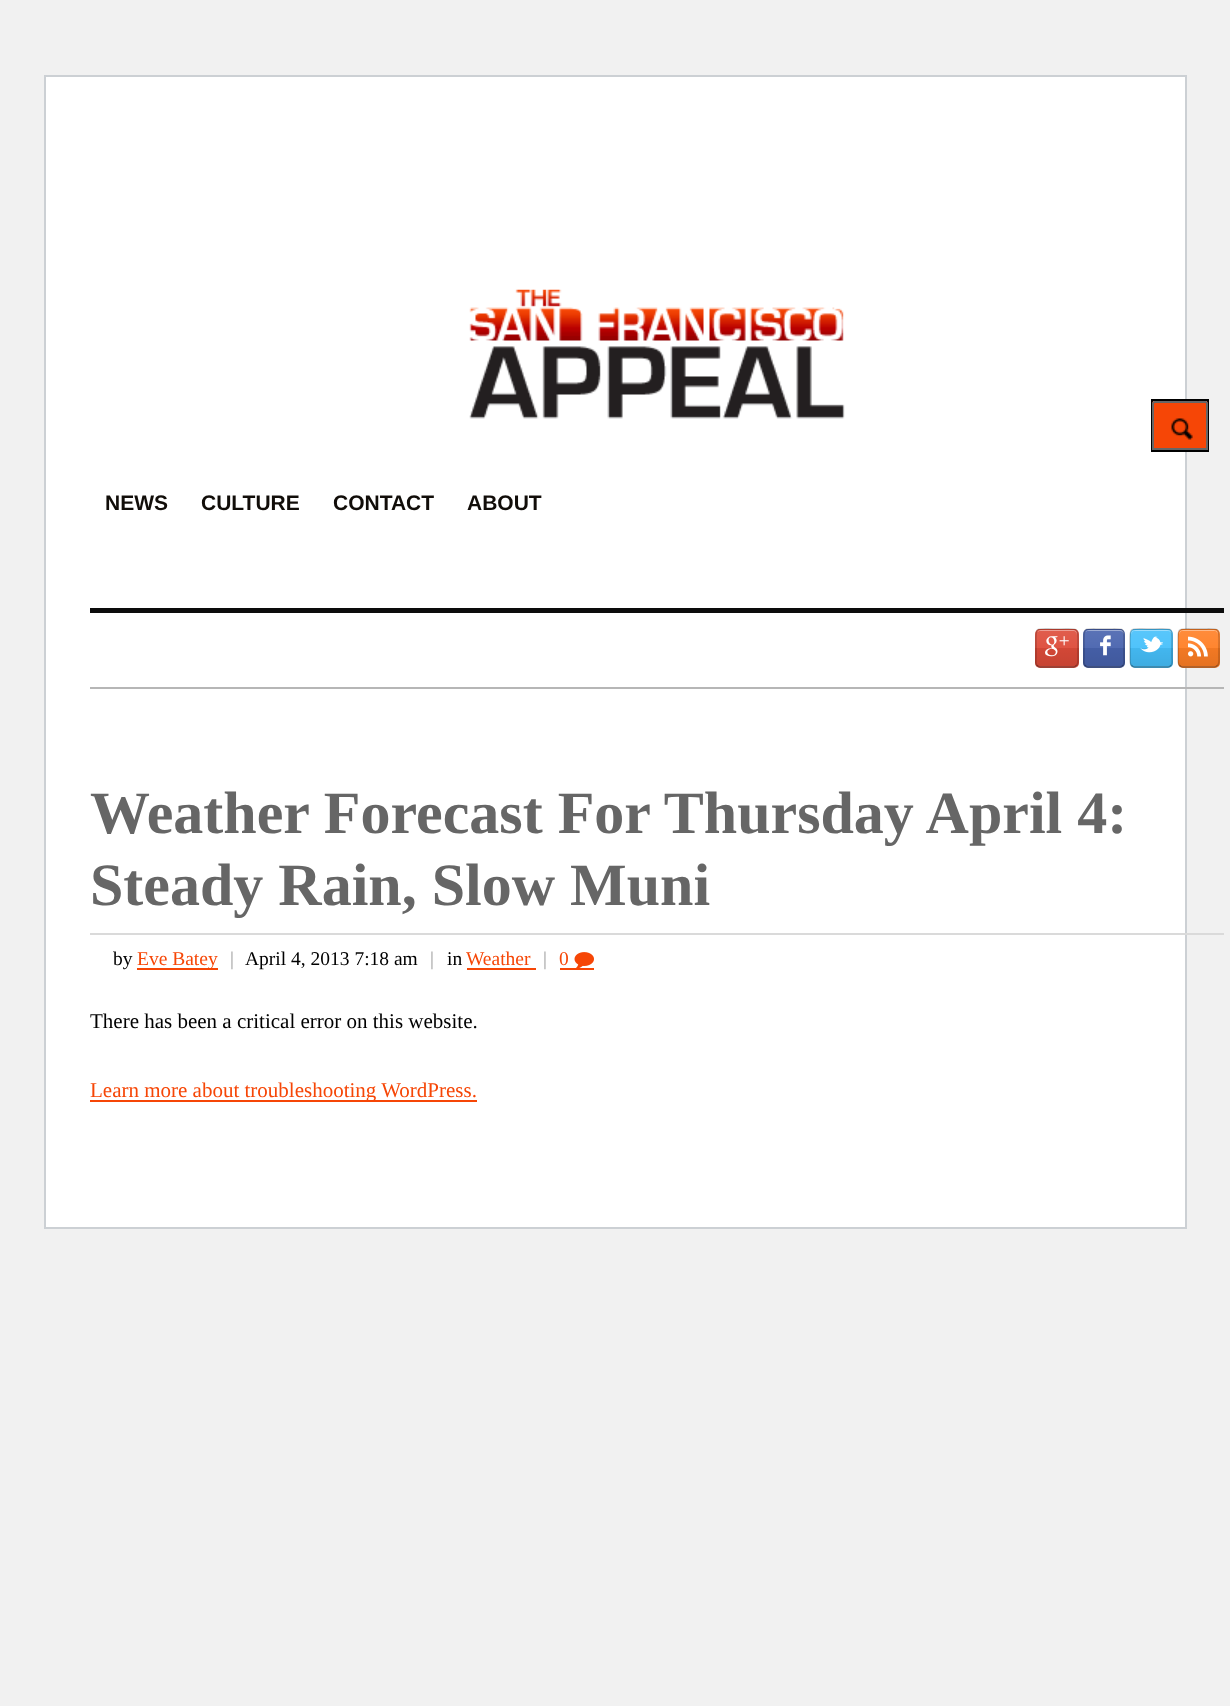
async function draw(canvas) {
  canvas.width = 1230
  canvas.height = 1706
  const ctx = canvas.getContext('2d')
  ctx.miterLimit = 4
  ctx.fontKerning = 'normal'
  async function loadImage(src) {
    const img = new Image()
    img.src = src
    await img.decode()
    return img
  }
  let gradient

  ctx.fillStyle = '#f1f1f1'
  ctx.fillRect(0, 0, 1230, 1706)
  ctx.fillStyle = '#fff'
  ctx.beginPath()
  ctx.rect(45, 76, 1141, 1152)
  ctx.fill()
  ctx.strokeStyle = '#ccd0d4'
  ctx.lineWidth = 2
  ctx.stroke()
  ctx.drawImage(await loadImage('image0.png'), 469, 289, 376, 130)
  ctx.strokeStyle = '#000'
  ctx.strokeRect(1152, 400, 56, 51)
  ctx.fillStyle = '#f64606'
  ctx.beginPath()
  ctx.roundRect(1152, 401, 56, 49, [3, 3, 0, 0])
  ctx.fill()
  ctx.drawImage(await loadImage('image1.png'), 1171, 418, 22, 22)
  ctx.beginPath()
  ctx.roundRect(1153, 402, 54, 47, [2, 2, 0, 0])
  ctx.strokeStyle = '#666'
  ctx.stroke()
  ctx.fillStyle = '#0c0c0c'
  ctx.fillRect(90, 608, 1134, 5)
  ctx.font = 'bold 21px Liberation Sans'
  ctx.fillStyle = '#110d09'
  ctx.fillText('NEWS', 105, 510)
  ctx.fillText('CULTURE', 201, 510)
  ctx.fillText('CONTACT', 333, 510)
  ctx.fillText('ABOUT', 467, 510)
  ctx.fillStyle = '#b6b6b6'
  ctx.fillRect(90, 687, 1134, 2)
  ctx.fillStyle = '#dd4b39'
  ctx.beginPath()
  ctx.roundRect(1035, 629, 44, 39, 5)
  ctx.fill()
  ctx.save()
  ctx.beginPath()
  ctx.roundRect(1035, 629, 44, 39, 5)
  ctx.clip()
  gradient = ctx.createLinearGradient(1057, 594, 1057, 630)
  gradient.addColorStop(0, '#ffffff1a')
  gradient.addColorStop(0.49, '#ffffff0d')
  gradient.addColorStop(0.51, '#0000000d')
  gradient.addColorStop(1, '#0000001a')
  ctx.fillStyle = gradient
  ctx.fillRect(1035, 629, 44, 1)
  gradient = ctx.createLinearGradient(1057, 630, 1057, 666)
  gradient.addColorStop(0, '#ffffff1a')
  gradient.addColorStop(0.49, '#ffffff0d')
  gradient.addColorStop(0.51, '#0000000d')
  gradient.addColorStop(1, '#0000001a')
  ctx.fillStyle = gradient
  ctx.fillRect(1035, 630, 44, 36)
  gradient = ctx.createLinearGradient(1057, 666, 1057, 702)
  gradient.addColorStop(0, '#ffffff1a')
  gradient.addColorStop(0.49, '#ffffff0d')
  gradient.addColorStop(0.51, '#0000000d')
  gradient.addColorStop(1, '#0000001a')
  ctx.fillStyle = gradient
  ctx.fillRect(1035, 666, 44, 2)
  ctx.restore()
  ctx.fillStyle = '#ed9e94'
  ctx.beginPath()
  ctx.moveTo(1040, 631)
  ctx.lineTo(1074, 631)
  ctx.bezierCurveTo(1075, 631, 1077, 633, 1077, 635)
  ctx.lineTo(1077, 634)
  ctx.bezierCurveTo(1077, 632, 1075, 630, 1073, 630)
  ctx.lineTo(1041, 630)
  ctx.bezierCurveTo(1039.5, 630, 1038, 631, 1037.5, 632)
  ctx.bezierCurveTo(1038.5, 631.5, 1039, 631, 1040, 631)
  ctx.closePath()
  ctx.fill()
  ctx.beginPath()
  ctx.moveTo(1076.5, 665.5)
  ctx.bezierCurveTo(1075.5, 666.5, 1074.5, 667, 1073.5, 667)
  ctx.lineTo(1040, 667)
  ctx.bezierCurveTo(1039, 667, 1038, 666.5, 1037, 665.5)
  ctx.strokeStyle = '#00000066'
  ctx.lineWidth = 1.5
  ctx.stroke()
  ctx.beginPath()
  ctx.moveTo(1037, 665.5)
  ctx.bezierCurveTo(1035, 663.5, 1036, 660, 1036, 657.5)
  ctx.lineTo(1036, 648)
  ctx.bezierCurveTo(1036, 625, 1033, 629, 1057, 629)
  ctx.bezierCurveTo(1080.5, 629, 1078, 625, 1078, 648)
  ctx.lineTo(1078, 657.5)
  ctx.bezierCurveTo(1078, 660, 1078.5, 663.5, 1076.5, 665.5)
  ctx.strokeStyle = '#00000033'
  ctx.stroke()
  ctx.font = '20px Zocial'
  ctx.fillStyle = '#fff'
  ctx.fillText('+', 1045, 653)
  ctx.fillStyle = '#4863ae'
  ctx.beginPath()
  ctx.roundRect(1083, 629, 42, 39, 5)
  ctx.fill()
  ctx.save()
  ctx.beginPath()
  ctx.roundRect(1083, 629, 42, 39, 5)
  ctx.clip()
  gradient = ctx.createLinearGradient(1104, 594, 1104, 630)
  gradient.addColorStop(0, '#ffffff1a')
  gradient.addColorStop(0.49, '#ffffff0d')
  gradient.addColorStop(0.51, '#0000000d')
  gradient.addColorStop(1, '#0000001a')
  ctx.fillStyle = gradient
  ctx.fillRect(1083, 629, 42, 1)
  gradient = ctx.createLinearGradient(1104, 630, 1104, 666)
  gradient.addColorStop(0, '#ffffff1a')
  gradient.addColorStop(0.49, '#ffffff0d')
  gradient.addColorStop(0.51, '#0000000d')
  gradient.addColorStop(1, '#0000001a')
  ctx.fillStyle = gradient
  ctx.fillRect(1083, 630, 42, 36)
  gradient = ctx.createLinearGradient(1104, 666, 1104, 702)
  gradient.addColorStop(0, '#ffffff1a')
  gradient.addColorStop(0.49, '#ffffff0d')
  gradient.addColorStop(0.51, '#0000000d')
  gradient.addColorStop(1, '#0000001a')
  ctx.fillStyle = gradient
  ctx.fillRect(1083, 666, 42, 2)
  ctx.restore()
  ctx.fillStyle = '#9cabd3'
  ctx.beginPath()
  ctx.moveTo(1088, 631)
  ctx.lineTo(1120, 631)
  ctx.bezierCurveTo(1122, 631, 1124, 633, 1124, 635)
  ctx.lineTo(1124, 634)
  ctx.bezierCurveTo(1124, 632, 1122, 630, 1120, 630)
  ctx.lineTo(1089, 630)
  ctx.bezierCurveTo(1087.5, 630, 1086, 631, 1085.5, 632)
  ctx.bezierCurveTo(1086.5, 631.5, 1087, 631, 1088, 631)
  ctx.closePath()
  ctx.fill()
  ctx.beginPath()
  ctx.moveTo(1123, 665.5)
  ctx.bezierCurveTo(1122, 666.5, 1121, 667, 1120, 667)
  ctx.lineTo(1088, 667)
  ctx.bezierCurveTo(1087, 667, 1086, 666.5, 1085, 665.5)
  ctx.strokeStyle = '#00000066'
  ctx.stroke()
  ctx.beginPath()
  ctx.moveTo(1085, 665.5)
  ctx.bezierCurveTo(1083, 663.5, 1084, 660, 1084, 657.5)
  ctx.lineTo(1084, 648)
  ctx.bezierCurveTo(1084, 625.5, 1081, 629, 1104, 629)
  ctx.bezierCurveTo(1127, 629, 1124, 625.5, 1124, 648)
  ctx.lineTo(1124, 657.5)
  ctx.bezierCurveTo(1124, 660, 1125, 663.5, 1123, 665.5)
  ctx.strokeStyle = '#00000033'
  ctx.stroke()
  ctx.drawImage(await loadImage('image2.png'), 1100, 635, 11, 21)
  ctx.fillStyle = '#46c0fb'
  ctx.beginPath()
  ctx.roundRect(1130, 629, 43, 39, 5)
  ctx.fill()
  ctx.save()
  ctx.beginPath()
  ctx.roundRect(1130, 629, 43, 39, 5)
  ctx.clip()
  gradient = ctx.createLinearGradient(1151, 594, 1151, 630)
  gradient.addColorStop(0, '#ffffff1a')
  gradient.addColorStop(0.49, '#ffffff0d')
  gradient.addColorStop(0.51, '#0000000d')
  gradient.addColorStop(1, '#0000001a')
  ctx.fillStyle = gradient
  ctx.fillRect(1130, 629, 43, 1)
  gradient = ctx.createLinearGradient(1151, 630, 1151, 666)
  gradient.addColorStop(0, '#ffffff1a')
  gradient.addColorStop(0.49, '#ffffff0d')
  gradient.addColorStop(0.51, '#0000000d')
  gradient.addColorStop(1, '#0000001a')
  ctx.fillStyle = gradient
  ctx.fillRect(1130, 630, 43, 36)
  gradient = ctx.createLinearGradient(1151, 666, 1151, 702)
  gradient.addColorStop(0, '#ffffff1a')
  gradient.addColorStop(0.49, '#ffffff0d')
  gradient.addColorStop(0.51, '#0000000d')
  gradient.addColorStop(1, '#0000001a')
  ctx.fillStyle = gradient
  ctx.fillRect(1130, 666, 43, 2)
  ctx.restore()
  ctx.fillStyle = '#9bddfd'
  ctx.beginPath()
  ctx.moveTo(1134, 631)
  ctx.lineTo(1168, 631)
  ctx.bezierCurveTo(1170, 631, 1172, 633, 1172, 635)
  ctx.bezierCurveTo(1172, 629, 1167, 630, 1162, 630)
  ctx.lineTo(1140, 630)
  ctx.bezierCurveTo(1136, 630, 1131, 629, 1131, 635)
  ctx.bezierCurveTo(1131, 633, 1133, 631, 1134, 631)
  ctx.closePath()
  ctx.fill()
  ctx.beginPath()
  ctx.moveTo(1171, 665.5)
  ctx.bezierCurveTo(1170, 666.5, 1169, 667, 1168, 667)
  ctx.lineTo(1134.5, 667)
  ctx.bezierCurveTo(1133.5, 667, 1132.5, 666.5, 1131.5, 665.5)
  ctx.strokeStyle = '#00000066'
  ctx.stroke()
  ctx.beginPath()
  ctx.moveTo(1131.5, 665.5)
  ctx.bezierCurveTo(1129.5, 663.5, 1130, 660, 1130, 657.5)
  ctx.lineTo(1130, 648)
  ctx.bezierCurveTo(1130, 625, 1127.5, 629, 1151, 629)
  ctx.bezierCurveTo(1175, 629, 1172, 625, 1172, 648)
  ctx.lineTo(1172, 657.5)
  ctx.bezierCurveTo(1172, 660, 1173, 663.5, 1171, 665.5)
  ctx.strokeStyle = '#00000033'
  ctx.stroke()
  ctx.drawImage(await loadImage('image3.png'), 1140, 636, 23, 17)
  ctx.fillStyle = '#ff7f25'
  ctx.beginPath()
  ctx.roundRect(1178, 629, 42, 39, 5)
  ctx.fill()
  ctx.save()
  ctx.beginPath()
  ctx.roundRect(1178, 629, 42, 39, 5)
  ctx.clip()
  gradient = ctx.createLinearGradient(1199, 594, 1199, 630)
  gradient.addColorStop(0, '#ffffff1a')
  gradient.addColorStop(0.49, '#ffffff0d')
  gradient.addColorStop(0.51, '#0000000d')
  gradient.addColorStop(1, '#0000001a')
  ctx.fillStyle = gradient
  ctx.fillRect(1178, 629, 42, 1)
  gradient = ctx.createLinearGradient(1199, 630, 1199, 666)
  gradient.addColorStop(0, '#ffffff1a')
  gradient.addColorStop(0.49, '#ffffff0d')
  gradient.addColorStop(0.51, '#0000000d')
  gradient.addColorStop(1, '#0000001a')
  ctx.fillStyle = gradient
  ctx.fillRect(1178, 630, 42, 36)
  gradient = ctx.createLinearGradient(1199, 666, 1199, 702)
  gradient.addColorStop(0, '#ffffff1a')
  gradient.addColorStop(0.49, '#ffffff0d')
  gradient.addColorStop(0.51, '#0000000d')
  gradient.addColorStop(1, '#0000001a')
  ctx.fillStyle = gradient
  ctx.fillRect(1178, 666, 42, 2)
  ctx.restore()
  ctx.fillStyle = '#ffba89'
  ctx.beginPath()
  ctx.moveTo(1182, 631)
  ctx.lineTo(1215, 631)
  ctx.bezierCurveTo(1216, 631, 1218, 633, 1218, 635)
  ctx.bezierCurveTo(1218, 629, 1213.5, 630, 1209, 630)
  ctx.lineTo(1188, 630)
  ctx.bezierCurveTo(1183.5, 630, 1179, 629, 1179, 635)
  ctx.bezierCurveTo(1179, 633, 1181, 631, 1182, 631)
  ctx.closePath()
  ctx.fill()
  ctx.beginPath()
  ctx.moveTo(1217.5, 665.5)
  ctx.bezierCurveTo(1216.5, 666.5, 1215.5, 667, 1214.5, 667)
  ctx.lineTo(1182.5, 667)
  ctx.bezierCurveTo(1181.5, 667, 1180.5, 666.5, 1179.5, 665.5)
  ctx.strokeStyle = '#00000066'
  ctx.stroke()
  ctx.beginPath()
  ctx.moveTo(1179.5, 665.5)
  ctx.bezierCurveTo(1177.5, 663.5, 1178, 660, 1178, 657.5)
  ctx.lineTo(1178, 648)
  ctx.bezierCurveTo(1178, 625.5, 1175.5, 629, 1198.5, 629)
  ctx.bezierCurveTo(1221.5, 629, 1219, 625.5, 1219, 648)
  ctx.lineTo(1219, 657.5)
  ctx.bezierCurveTo(1219, 660, 1219.5, 663.5, 1217.5, 665.5)
  ctx.strokeStyle = '#00000033'
  ctx.stroke()
  ctx.drawImage(await loadImage('image4.png'), 1188, 636, 20, 21)
  ctx.fillStyle = '#dadada'
  ctx.fillRect(90, 933, 1134, 2)
  ctx.font = 'bold 60px Liberation Serif'
  ctx.fillStyle = '#666'
  ctx.fillText('Weather Forecast For Thursday April 4:', 90, 833)
  ctx.fillText('Steady Rain, Slow Muni', 90, 905)
  ctx.font = '19.5px Liberation Serif'
  ctx.fillStyle = '#000'
  ctx.fillText('by', 113, 965)
  ctx.fillStyle = '#f64606'
  ctx.fillRect(137, 968, 81, 2)
  ctx.fillText('Eve Batey', 137, 965)
  ctx.fillStyle = '#9a9a9a'
  ctx.fillText('|', 230, 965)
  ctx.fillStyle = '#000'
  ctx.fillText('April 4, 2013 7:18 am', 245, 965)
  ctx.fillStyle = '#9a9a9a'
  ctx.fillText('|', 430, 965)
  ctx.fillStyle = '#000'
  ctx.fillText('in', 447, 965)
  ctx.fillStyle = '#f64606'
  ctx.fillText('Weather', 466, 965)
  ctx.fillRect(467, 968, 69, 2)
  ctx.fillStyle = '#9a9a9a'
  ctx.fillText('|', 543, 965)
  ctx.fillStyle = '#f64606'
  ctx.fillText('0', 559, 965)
  ctx.fillRect(560, 968, 34, 2)
  ctx.drawImage(await loadImage('image5.png'), 574, 952, 20, 16)
  ctx.font = '21px Liberation Serif'
  ctx.fillStyle = '#000'
  ctx.fillText('There has been a critical error on this website.', 90, 1028)
  ctx.fillStyle = '#f64606'
  ctx.fillRect(90, 1100, 387, 2)
  ctx.fillText('Learn more about troubleshooting WordPress.', 90, 1097)
}

draw(document.querySelector('canvas'))
